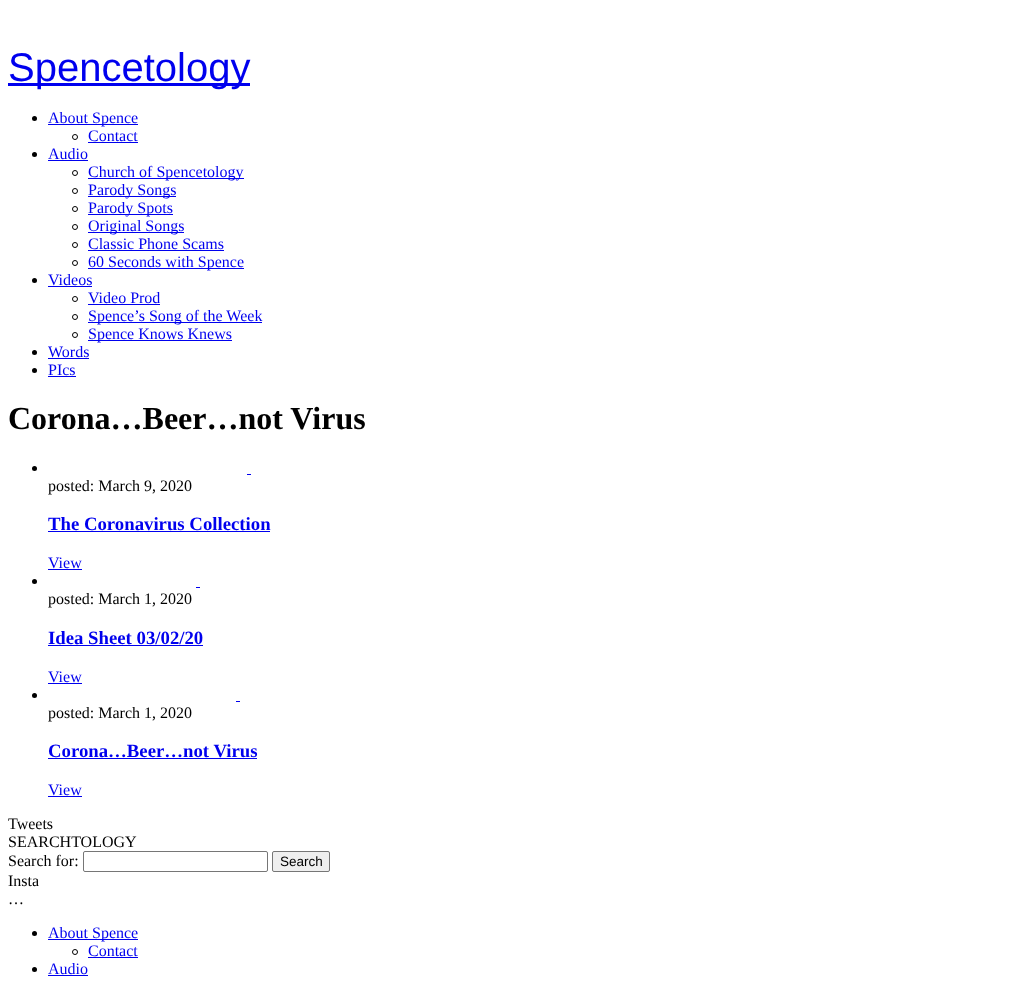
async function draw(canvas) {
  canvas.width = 1020
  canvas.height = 983
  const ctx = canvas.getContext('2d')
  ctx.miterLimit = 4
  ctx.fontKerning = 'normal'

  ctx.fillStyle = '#fff'
  ctx.fillRect(0, 0, 1020, 983)
  ctx.fillStyle = '#00e'
  ctx.fillRect(8, 83, 242, 3)
  ctx.font = '40px Liberation Sans'
  ctx.fillText('Spencetology', 8, 81)
  ctx.fillStyle = '#000'
  ctx.beginPath()
  ctx.arc(34.5, 118.5, 2.5, 0, 2 * Math.PI)
  ctx.fill()
  ctx.fillStyle = '#00e'
  ctx.fillRect(48, 124, 90, 1)
  ctx.font = '16px Liberation Serif'
  ctx.fillText('About Spence', 48, 123)
  ctx.beginPath()
  ctx.arc(75, 137, 2.5, 0, 2 * Math.PI)
  ctx.strokeStyle = '#000'
  ctx.stroke()
  ctx.fillText('Contact', 88, 141)
  ctx.fillRect(88, 142, 50, 1)
  ctx.fillStyle = '#000'
  ctx.beginPath()
  ctx.arc(34.5, 154.5, 2.5, 0, 2 * Math.PI)
  ctx.fill()
  ctx.fillStyle = '#00e'
  ctx.fillText('Audio', 48, 159)
  ctx.fillRect(48, 160, 40, 1)
  ctx.beginPath()
  ctx.arc(75, 173, 2.5, 0, 2 * Math.PI)
  ctx.stroke()
  ctx.fillRect(88, 178, 156, 1)
  ctx.fillText('Church of Spencetology', 88, 177)
  ctx.beginPath()
  ctx.arc(75, 191, 2.5, 0, 2 * Math.PI)
  ctx.stroke()
  ctx.fillRect(88, 196, 88, 1)
  ctx.fillText('Parody Songs', 88, 195)
  ctx.beginPath()
  ctx.arc(75, 209, 2.5, 0, 2 * Math.PI)
  ctx.stroke()
  ctx.fillRect(88, 214, 85, 1)
  ctx.fillText('Parody Spots', 88, 213)
  ctx.beginPath()
  ctx.arc(75, 227, 2.5, 0, 2 * Math.PI)
  ctx.stroke()
  ctx.fillRect(88, 232, 96, 1)
  ctx.fillText('Original Songs', 88, 231)
  ctx.beginPath()
  ctx.arc(75, 245, 2.5, 0, 2 * Math.PI)
  ctx.stroke()
  ctx.fillText('Classic Phone Scams', 88, 249)
  ctx.fillRect(88, 250, 136, 1)
  ctx.beginPath()
  ctx.arc(75, 263, 2.5, 0, 2 * Math.PI)
  ctx.stroke()
  ctx.fillRect(88, 268, 156, 1)
  ctx.fillText('60 Seconds with Spence', 88, 267)
  ctx.fillStyle = '#000'
  ctx.beginPath()
  ctx.arc(34.5, 280.5, 2.5, 0, 2 * Math.PI)
  ctx.fill()
  ctx.fillStyle = '#00e'
  ctx.fillText('Videos', 48, 285)
  ctx.fillRect(48, 286, 44, 1)
  ctx.beginPath()
  ctx.arc(75, 299, 2.5, 0, 2 * Math.PI)
  ctx.stroke()
  ctx.fillText('Video Prod', 88, 303)
  ctx.fillRect(88, 304, 72, 1)
  ctx.beginPath()
  ctx.arc(75, 317, 2.5, 0, 2 * Math.PI)
  ctx.stroke()
  ctx.fillRect(88, 322, 174, 1)
  ctx.fillText('Spence’s Song of the Week', 88, 321)
  ctx.beginPath()
  ctx.arc(75, 335, 2.5, 0, 2 * Math.PI)
  ctx.stroke()
  ctx.fillRect(88, 340, 144, 1)
  ctx.fillText('Spence Knows Knews', 88, 339)
  ctx.fillStyle = '#000'
  ctx.beginPath()
  ctx.arc(34.5, 352.5, 2.5, 0, 2 * Math.PI)
  ctx.fill()
  ctx.fillStyle = '#00e'
  ctx.fillText('Words', 48, 357)
  ctx.fillRect(48, 358, 41, 1)
  ctx.fillStyle = '#000'
  ctx.beginPath()
  ctx.arc(34.5, 370.5, 2.5, 0, 2 * Math.PI)
  ctx.fill()
  ctx.fillStyle = '#00e'
  ctx.fillText('PIcs', 48, 375)
  ctx.fillRect(48, 376, 28, 1)
  ctx.font = 'bold 32px Liberation Serif'
  ctx.fillStyle = '#000'
  ctx.fillText('Corona…Beer…not Virus', 8, 429)
  ctx.beginPath()
  ctx.arc(34.5, 468.5, 2.5, 0, 2 * Math.PI)
  ctx.fill()
  ctx.fillStyle = '#00e'
  ctx.fillRect(247, 474, 4, 1)
  ctx.font = '16px Liberation Serif'
  ctx.fillStyle = '#000'
  ctx.fillText('posted: March 9, 2020', 48, 491)
  ctx.font = 'bold 18.75px Liberation Serif'
  ctx.fillStyle = '#00e'
  ctx.fillText('The Coronavirus Collection', 48, 530)
  ctx.fillRect(48, 531, 222, 1)
  ctx.font = '16px Liberation Serif'
  ctx.fillText('View', 48, 568)
  ctx.fillRect(48, 569, 34, 1)
  ctx.fillStyle = '#000'
  ctx.beginPath()
  ctx.arc(34.5, 581.5, 2.5, 0, 2 * Math.PI)
  ctx.fill()
  ctx.fillStyle = '#00e'
  ctx.fillRect(196, 587, 4, 1)
  ctx.fillStyle = '#000'
  ctx.fillText('posted: March 1, 2020', 48, 604)
  ctx.font = 'bold 18.75px Liberation Serif'
  ctx.fillStyle = '#00e'
  ctx.fillText('Idea Sheet 03/02/20', 48, 644)
  ctx.fillRect(48, 645, 155, 1)
  ctx.font = '16px Liberation Serif'
  ctx.fillText('View', 48, 682)
  ctx.fillRect(48, 683, 34, 1)
  ctx.fillStyle = '#000'
  ctx.beginPath()
  ctx.arc(34.5, 695.5, 2.5, 0, 2 * Math.PI)
  ctx.fill()
  ctx.fillStyle = '#00e'
  ctx.fillRect(236, 701, 4, 1)
  ctx.fillStyle = '#000'
  ctx.fillText('posted: March 1, 2020', 48, 718)
  ctx.font = 'bold 18.75px Liberation Serif'
  ctx.fillStyle = '#00e'
  ctx.fillText('Corona…Beer…not Virus', 48, 757)
  ctx.fillRect(48, 758, 209, 1)
  ctx.font = '16px Liberation Serif'
  ctx.fillText('View', 48, 795)
  ctx.fillRect(48, 796, 34, 1)
  ctx.fillStyle = '#000'
  ctx.fillText('Tweets', 8, 829)
  ctx.fillText('SEARCHTOLOGY', 8, 847)
  ctx.fillText('Search for:', 8, 866)
  ctx.beginPath()
  ctx.roundRect(83.5, 851.5, 184, 20, 1.5)
  ctx.strokeStyle = '#767676'
  ctx.stroke()
  ctx.fillStyle = '#efefef'
  ctx.beginPath()
  ctx.roundRect(272.5, 851.5, 57, 20, 1.5)
  ctx.fill()
  ctx.stroke()
  ctx.font = '13.5px Liberation Sans'
  ctx.fillStyle = '#000'
  ctx.fillText('Search', 280, 866)
  ctx.font = '16px Liberation Serif'
  ctx.fillText('Insta', 8, 886)
  ctx.fillText('…', 8, 904)
  ctx.beginPath()
  ctx.arc(34.5, 933.5, 2.5, 0, 2 * Math.PI)
  ctx.fill()
  ctx.fillStyle = '#00e'
  ctx.fillRect(48, 939, 90, 1)
  ctx.fillText('About Spence', 48, 938)
  ctx.beginPath()
  ctx.arc(75, 952, 2.5, 0, 2 * Math.PI)
  ctx.strokeStyle = '#000'
  ctx.stroke()
  ctx.fillText('Contact', 88, 956)
  ctx.fillRect(88, 957, 50, 1)
  ctx.fillStyle = '#000'
  ctx.beginPath()
  ctx.arc(34.5, 969.5, 2.5, 0, 2 * Math.PI)
  ctx.fill()
  ctx.fillStyle = '#00e'
  ctx.fillText('Audio', 48, 974)
  ctx.fillRect(48, 975, 40, 1)
}

draw(document.querySelector('canvas'))
